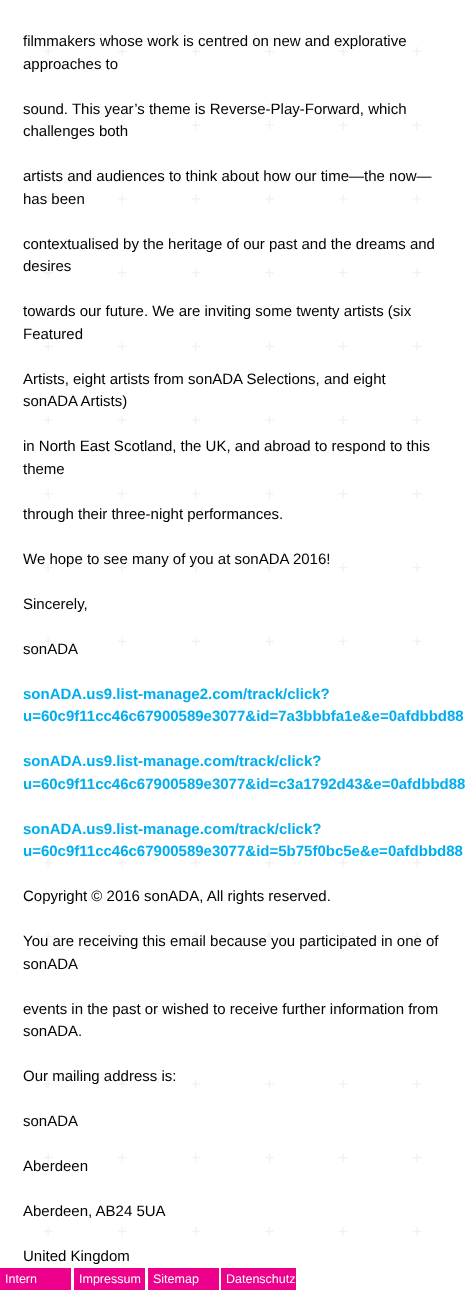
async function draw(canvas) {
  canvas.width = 466
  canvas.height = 1290
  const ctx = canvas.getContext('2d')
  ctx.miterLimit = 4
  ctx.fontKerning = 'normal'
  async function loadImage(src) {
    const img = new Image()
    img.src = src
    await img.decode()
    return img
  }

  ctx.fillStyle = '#fff'
  ctx.fillRect(0, 0, 466, 1290)
  ctx.drawImage(await loadImage('image0.png'), 43, 46, 379, 1190)
  ctx.font = '15px Liberation Sans'
  ctx.fillStyle = '#010101'
  ctx.fillText('filmmakers whose work is centred on new and explorative', 23, 46)
  ctx.fillText('approaches to', 23, 69)
  ctx.fillText('sound. This year’s theme is Reverse-Play-Forward, which', 23, 114)
  ctx.fillText('challenges both', 23, 136)
  ctx.fillText('artists and audiences to think about how our time—the now—', 23, 181)
  ctx.fillText('has been', 23, 204)
  ctx.fillText('contextualised by the heritage of our past and the dreams and', 23, 249)
  ctx.fillText('desires', 23, 271)
  ctx.fillText('towards our future. We are inviting some twenty artists (six', 23, 316)
  ctx.fillText('Featured', 23, 339)
  ctx.fillText('Artists, eight artists from sonADA Selections, and eight', 23, 384)
  ctx.fillText('sonADA Artists)', 23, 406)
  ctx.fillText('in North East Scotland, the UK, and abroad to respond to this', 23, 451)
  ctx.fillText('theme', 23, 474)
  ctx.fillText('through their three-night performances.', 23, 519)
  ctx.fillText('We hope to see many of you at sonADA 2016!', 23, 564)
  ctx.fillText('Sincerely,', 23, 609)
  ctx.fillText('sonADA', 23, 654)
  ctx.font = 'bold 15px Liberation Sans'
  ctx.fillStyle = '#00aeef'
  ctx.fillText('sonADA.us9.list-manage2.com/track/click?', 23, 699)
  ctx.fillText('u=60c9f11cc46c67900589e3077&id=7a3bbbfa1e&e=0afdbbd88', 23, 721)
  ctx.fillText('sonADA.us9.list-manage.com/track/click?', 23, 766)
  ctx.fillText('u=60c9f11cc46c67900589e3077&id=c3a1792d43&e=0afdbbd88', 23, 789)
  ctx.fillText('sonADA.us9.list-manage.com/track/click?', 23, 834)
  ctx.fillText('u=60c9f11cc46c67900589e3077&id=5b75f0bc5e&e=0afdbbd88', 23, 856)
  ctx.font = '15px Liberation Sans'
  ctx.fillStyle = '#010101'
  ctx.fillText('Copyright © 2016 sonADA, All rights reserved.', 23, 901)
  ctx.fillText('You are receiving this email because you participated in one of', 23, 946)
  ctx.fillText('sonADA', 23, 969)
  ctx.fillText('events in the past or wished to receive further information from', 23, 1014)
  ctx.fillText('sonADA.', 23, 1036)
  ctx.fillText('Our mailing address is:', 23, 1081)
  ctx.fillText('sonADA', 23, 1126)
  ctx.fillText('Aberdeen', 23, 1171)
  ctx.fillText('Aberdeen, AB24 5UA', 23, 1216)
  ctx.fillText('United Kingdom', 23, 1261)
  ctx.fillStyle = '#ed008c'
  ctx.fillRect(0, 1268, 71, 22)
  ctx.font = '12.5px Liberation Sans'
  ctx.fillStyle = '#fff'
  ctx.fillText('Intern', 5, 1283)
  ctx.fillStyle = '#ed008c'
  ctx.fillRect(74, 1268, 71, 22)
  ctx.fillStyle = '#fff'
  ctx.fillText('Impressum', 79, 1283)
  ctx.fillStyle = '#ed008c'
  ctx.fillRect(148, 1268, 71, 22)
  ctx.fillStyle = '#fff'
  ctx.fillText('Sitemap', 153, 1283)
  ctx.fillStyle = '#ed008c'
  ctx.fillRect(221, 1268, 75, 22)
  ctx.fillStyle = '#fff'
  ctx.fillText('Datenschutz', 226, 1283)
}

draw(document.querySelector('canvas'))
